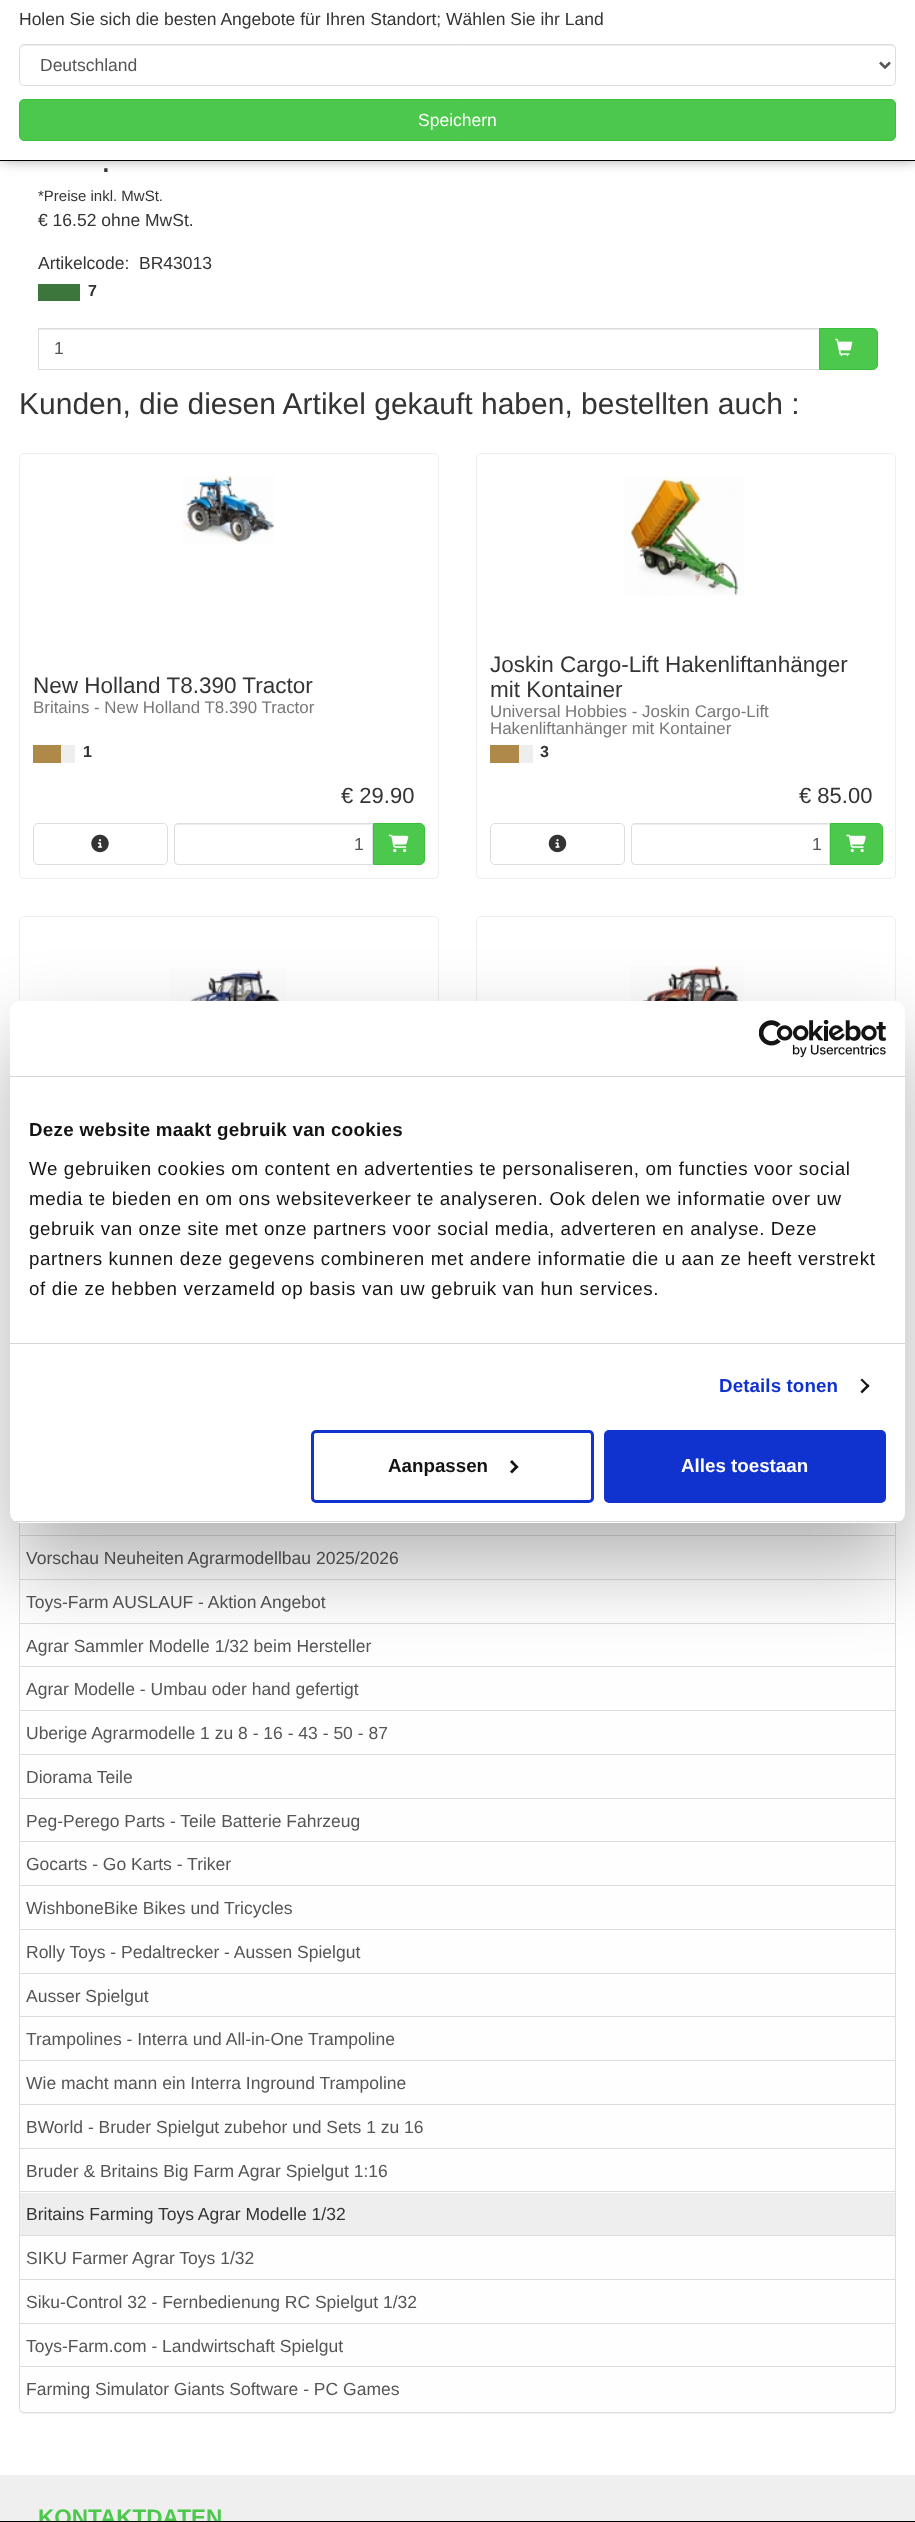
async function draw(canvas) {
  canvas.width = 915
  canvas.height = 2522
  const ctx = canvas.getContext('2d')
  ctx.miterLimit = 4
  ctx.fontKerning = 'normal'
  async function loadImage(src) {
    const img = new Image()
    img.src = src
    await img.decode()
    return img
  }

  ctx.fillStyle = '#fff'
  ctx.fillRect(0, 0, 915, 2522)
  ctx.fillStyle = '#808080'
  ctx.filter = 'blur(7.5px)'
  ctx.beginPath()
  ctx.rect(1, -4, 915, 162)
  ctx.fill()
  ctx.filter = 'none'
  ctx.fillStyle = '#fff'
  ctx.fillRect(0, 0, 915, 160)
  ctx.fillStyle = '#000'
  ctx.fillRect(0, 160, 915, 1)
  ctx.font = '17.5px Liberation Sans'
  ctx.fillStyle = '#343434'
  ctx.fillText('Holen Sie sich die besten Angebote für Ihren Standort; Wählen Sie ihr Land', 19, 25)
  ctx.fillStyle = '#ececec'
  ctx.beginPath()
  ctx.moveTo(24, 46)
  ctx.lineTo(891, 46)
  ctx.bezierCurveTo(893, 46, 895, 48, 895, 50)
  ctx.bezierCurveTo(895, 47, 894, 45, 891, 45)
  ctx.lineTo(24, 45)
  ctx.bezierCurveTo(21, 45, 20, 47, 20, 50)
  ctx.bezierCurveTo(20, 48, 22, 46, 24, 46)
  ctx.closePath()
  ctx.fill()
  ctx.beginPath()
  ctx.roundRect(19.5, 44.5, 876, 41, 4.5)
  ctx.strokeStyle = '#ddd'
  ctx.stroke()
  ctx.beginPath()
  ctx.moveTo(880, 62.5)
  ctx.lineTo(885, 67.5)
  ctx.lineTo(890, 62.5)
  ctx.strokeStyle = '#565656'
  ctx.lineWidth = 2.5
  ctx.stroke()
  ctx.fillStyle = '#555'
  ctx.fillText('Deutschland', 40, 71)
  ctx.fillStyle = '#4cc94c'
  ctx.beginPath()
  ctx.roundRect(19.5, 99.5, 876, 41, 4.5)
  ctx.fill()
  ctx.strokeStyle = '#3ac13a'
  ctx.lineWidth = 1
  ctx.stroke()
  ctx.fillStyle = '#fefefe'
  ctx.fillText('Speichern', 418, 126)
  ctx.font = '35px Liberation Sans'
  ctx.fillStyle = '#343434'
  ctx.fillText('.', 101, 172)
  ctx.font = '15px Liberation Sans'
  ctx.fillText('*Preise inkl. MwSt.', 38, 201)
  ctx.font = '17.5px Liberation Sans'
  ctx.fillText('€ 16.52 ohne MwSt.', 38, 226)
  ctx.fillText('Artikelcode:', 38, 269)
  ctx.fillText('BR43013', 139, 269)
  ctx.fillStyle = '#3c763d'
  ctx.fillRect(38, 284, 42, 17)
  ctx.font = 'bold 16px Liberation Sans'
  ctx.fillStyle = '#343434'
  ctx.fillText('7', 88, 296)
  ctx.fillStyle = '#ececec'
  ctx.fillRect(39, 329, 780, 1)
  ctx.strokeStyle = '#ddd'
  ctx.strokeRect(38.5, 328.5, 781, 41)
  ctx.font = '17.5px Liberation Sans'
  ctx.fillStyle = '#555'
  ctx.fillText('1', 54, 354)
  ctx.fillStyle = '#4cc94c'
  ctx.beginPath()
  ctx.roundRect(819.5, 328.5, 58, 41, [0, 4.5, 4.5, 0])
  ctx.fill()
  ctx.strokeStyle = '#3ac13a'
  ctx.stroke()
  ctx.drawImage(await loadImage('image0.png'), 835, 338, 18, 19)
  ctx.font = '30px Liberation Sans'
  ctx.fillStyle = '#343434'
  ctx.fillText('Kunden, die diesen Artikel gekauft haben, bestellten auch :', 19, 414)
  ctx.beginPath()
  ctx.roundRect(19.5, 453.5, 419, 425, 4.5)
  ctx.strokeStyle = '#efefef'
  ctx.stroke()
  ctx.drawImage(await loadImage('image1.png'), 182, 475, 92, 69)
  ctx.font = '22.5px Liberation Sans'
  ctx.fillText('New Holland T8.390 Tractor', 33, 693)
  ctx.font = '16.9px Liberation Sans'
  ctx.fillStyle = '#787878'
  ctx.fillText('Britains - New Holland T8.390 Tractor', 33, 713)
  ctx.fillStyle = '#ae894a'
  ctx.fillRect(33, 745, 28, 18)
  ctx.fillStyle = '#eee'
  ctx.fillRect(61, 745, 14, 18)
  ctx.font = 'bold 16px Liberation Sans'
  ctx.fillStyle = '#343434'
  ctx.fillText('1', 83, 757)
  ctx.font = '22px Liberation Sans'
  ctx.fillText('€ 29.90', 341, 803)
  ctx.beginPath()
  ctx.roundRect(33.5, 823.5, 134, 41, 4.5)
  ctx.strokeStyle = '#ddd'
  ctx.stroke()
  ctx.drawImage(await loadImage('image2.png'), 91, 834, 18, 19)
  ctx.fillStyle = '#ececec'
  ctx.beginPath()
  ctx.moveTo(178, 825)
  ctx.lineTo(371, 825)
  ctx.lineTo(371, 824)
  ctx.lineTo(178, 824)
  ctx.bezierCurveTo(175, 824, 175, 826, 175, 828)
  ctx.bezierCurveTo(175, 826, 176, 825, 178, 825)
  ctx.closePath()
  ctx.fill()
  ctx.beginPath()
  ctx.roundRect(174.5, 823.5, 198, 41, [3.5, 0, 0, 3.5])
  ctx.stroke()
  ctx.font = '17.5px Liberation Sans'
  ctx.fillStyle = '#555'
  ctx.fillText('1', 354, 850)
  ctx.fillStyle = '#4cc94c'
  ctx.beginPath()
  ctx.roundRect(373.5, 823.5, 51, 41, [0, 4.5, 4.5, 0])
  ctx.fill()
  ctx.strokeStyle = '#3ac13a'
  ctx.stroke()
  ctx.drawImage(await loadImage('image3.png'), 388, 834, 21, 19)
  ctx.beginPath()
  ctx.roundRect(476.5, 453.5, 419, 425, 4.5)
  ctx.strokeStyle = '#efefef'
  ctx.stroke()
  ctx.drawImage(await loadImage('image4.png'), 624, 477, 120, 119)
  ctx.font = '22.5px Liberation Sans'
  ctx.fillStyle = '#343434'
  ctx.fillText('Joskin Cargo-Lift Hakenliftanhänger', 490, 672)
  ctx.fillText('mit Kontainer', 490, 697)
  ctx.font = '16.9px Liberation Sans'
  ctx.fillStyle = '#787878'
  ctx.fillText('Universal Hobbies - Joskin Cargo-Lift', 490, 717)
  ctx.fillText('Hakenliftanhänger mit Kontainer', 490, 734)
  ctx.fillStyle = '#ae894a'
  ctx.fillRect(490, 745, 29, 18)
  ctx.fillStyle = '#eee'
  ctx.fillRect(519, 745, 14, 18)
  ctx.font = 'bold 16px Liberation Sans'
  ctx.fillStyle = '#343434'
  ctx.fillText('3', 540, 757)
  ctx.font = '22px Liberation Sans'
  ctx.fillText('€ 85.00', 799, 803)
  ctx.beginPath()
  ctx.roundRect(490.5, 823.5, 134, 41, 4.5)
  ctx.strokeStyle = '#ddd'
  ctx.stroke()
  ctx.drawImage(await loadImage('image5.png'), 548, 834, 19, 19)
  ctx.fillStyle = '#ececec'
  ctx.beginPath()
  ctx.moveTo(635, 825)
  ctx.lineTo(829, 825)
  ctx.lineTo(829, 824)
  ctx.lineTo(636, 824)
  ctx.bezierCurveTo(634, 824, 633, 825, 633, 826)
  ctx.closePath()
  ctx.fill()
  ctx.beginPath()
  ctx.roundRect(631.5, 823.5, 198, 41, [3.5, 0, 0, 3.5])
  ctx.stroke()
  ctx.font = '17.5px Liberation Sans'
  ctx.fillStyle = '#555'
  ctx.fillText('1', 812, 850)
  ctx.fillStyle = '#4cc94c'
  ctx.beginPath()
  ctx.roundRect(830.5, 823.5, 52, 41, [0, 4.5, 4.5, 0])
  ctx.fill()
  ctx.strokeStyle = '#3ac13a'
  ctx.stroke()
  ctx.drawImage(await loadImage('image6.png'), 846, 834, 20, 19)
  ctx.beginPath()
  ctx.roundRect(19.5, 916.5, 419, 426, 4.5)
  ctx.strokeStyle = '#efefef'
  ctx.stroke()
  ctx.drawImage(await loadImage('image7.png'), 170, 969, 116, 32)
  ctx.beginPath()
  ctx.roundRect(476.5, 916.5, 419, 426, 4.5)
  ctx.stroke()
  ctx.drawImage(await loadImage('image8.png'), 629, 965, 115, 36)
  ctx.fillStyle = '#0000000d'
  ctx.filter = 'blur(0.5px)'
  ctx.beginPath()
  ctx.roundRect(19, 1400, 877, 1014, 5)
  ctx.fill()
  ctx.filter = 'none'
  ctx.fillStyle = '#fefefe'
  ctx.beginPath()
  ctx.roundRect(19.5, 1399.5, 876, 1013, 4.5)
  ctx.fill()
  ctx.strokeStyle = '#ddd'
  ctx.stroke()
  ctx.fillStyle = '#ddd'
  ctx.fillRect(20, 1535, 875, 1)
  ctx.fillStyle = '#555'
  ctx.fillText('Vorschau Neuheiten Agrarmodellbau 2025/2026', 26, 1564)
  ctx.fillStyle = '#ddd'
  ctx.fillRect(20, 1579, 875, 1)
  ctx.fillStyle = '#555'
  ctx.fillText('Toys-Farm AUSLAUF - Aktion Angebot', 26, 1608)
  ctx.fillStyle = '#ddd'
  ctx.fillRect(20, 1623, 875, 1)
  ctx.fillStyle = '#555'
  ctx.fillText('Agrar Sammler Modelle 1/32 beim Hersteller', 26, 1652)
  ctx.fillStyle = '#ddd'
  ctx.fillRect(20, 1666, 875, 1)
  ctx.fillStyle = '#555'
  ctx.fillText('Agrar Modelle - Umbau oder hand gefertigt', 26, 1695)
  ctx.fillStyle = '#ddd'
  ctx.fillRect(20, 1710, 875, 1)
  ctx.fillStyle = '#555'
  ctx.fillText('Uberige Agrarmodelle 1 zu 8 - 16 - 43 - 50 - 87', 26, 1739)
  ctx.fillStyle = '#ddd'
  ctx.fillRect(20, 1754, 875, 1)
  ctx.fillStyle = '#555'
  ctx.fillText('Diorama Teile', 26, 1783)
  ctx.fillStyle = '#ddd'
  ctx.fillRect(20, 1798, 875, 1)
  ctx.fillStyle = '#555'
  ctx.fillText('Peg-Perego Parts - Teile Batterie Fahrzeug', 26, 1827)
  ctx.fillStyle = '#ddd'
  ctx.fillRect(20, 1841, 875, 1)
  ctx.fillStyle = '#555'
  ctx.fillText('Gocarts - Go Karts - Triker', 26, 1870)
  ctx.fillStyle = '#ddd'
  ctx.fillRect(20, 1885, 875, 1)
  ctx.fillStyle = '#555'
  ctx.fillText('WishboneBike Bikes und Tricycles', 26, 1914)
  ctx.fillStyle = '#ddd'
  ctx.fillRect(20, 1929, 875, 1)
  ctx.fillStyle = '#555'
  ctx.fillText('Rolly Toys - Pedaltrecker - Aussen Spielgut', 26, 1958)
  ctx.fillStyle = '#ddd'
  ctx.fillRect(20, 1973, 875, 1)
  ctx.fillStyle = '#555'
  ctx.fillText('Ausser Spielgut', 26, 2002)
  ctx.fillStyle = '#ddd'
  ctx.fillRect(20, 2016, 875, 1)
  ctx.fillStyle = '#555'
  ctx.fillText('Trampolines - Interra und All-in-One Trampoline', 26, 2045)
  ctx.fillStyle = '#ddd'
  ctx.fillRect(20, 2060, 875, 1)
  ctx.fillStyle = '#555'
  ctx.fillText('Wie macht mann ein Interra Inground Trampoline', 26, 2089)
  ctx.fillStyle = '#ddd'
  ctx.fillRect(20, 2104, 875, 1)
  ctx.fillStyle = '#555'
  ctx.fillText('BWorld - Bruder Spielgut zubehor und Sets 1 zu 16', 26, 2133)
  ctx.fillStyle = '#ddd'
  ctx.fillRect(20, 2148, 875, 1)
  ctx.fillStyle = '#555'
  ctx.fillText('Bruder & Britains Big Farm Agrar Spielgut 1:16', 26, 2177)
  ctx.fillStyle = '#eee'
  ctx.fillRect(20, 2193, 875, 42)
  ctx.fillStyle = '#ddd'
  ctx.fillRect(20, 2191, 875, 1)
  ctx.fillStyle = '#343434'
  ctx.fillText('Britains Farming Toys Agrar Modelle 1/32', 26, 2220)
  ctx.fillStyle = '#ddd'
  ctx.fillRect(20, 2235, 875, 1)
  ctx.fillStyle = '#555'
  ctx.fillText('SIKU Farmer Agrar Toys 1/32', 26, 2264)
  ctx.fillStyle = '#ddd'
  ctx.fillRect(20, 2279, 875, 1)
  ctx.fillStyle = '#555'
  ctx.fillText('Siku-Control 32 - Fernbedienung RC Spielgut 1/32', 26, 2308)
  ctx.fillStyle = '#ddd'
  ctx.fillRect(20, 2323, 875, 1)
  ctx.fillStyle = '#555'
  ctx.fillText('Toys-Farm.com - Landwirtschaft Spielgut', 26, 2352)
  ctx.fillStyle = '#ddd'
  ctx.fillRect(20, 2366, 875, 1)
  ctx.fillStyle = '#555'
  ctx.fillText('Farming Simulator Giants Software - PC Games', 26, 2395)
  ctx.fillStyle = '#0000004d'
  ctx.filter = 'blur(42.5px)'
  ctx.beginPath()
  ctx.roundRect(10, 1041, 895, 522, 10)
  ctx.fill()
  ctx.filter = 'none'
  ctx.fillStyle = '#fff'
  ctx.beginPath()
  ctx.roundRect(10, 1001, 895, 522, 10)
  ctx.fill()
  ctx.fillStyle = '#d6d6d6'
  ctx.fillRect(10, 1076, 895, 1)
  ctx.drawImage(await loadImage('image9.png'), 759, 1020, 127, 38)
  ctx.fillRect(10, 1343, 895, 1)
  ctx.letterSpacing = '0.3px'
  ctx.font = 'bold 18.75px Liberation Sans'
  ctx.fillStyle = '#141414'
  ctx.fillText('Deze website maakt gebruik van cookies', 29, 1136)
  ctx.letterSpacing = '0.62px'
  ctx.font = '18.75px Liberation Sans'
  ctx.fillText('We gebruiken cookies om content en advertenties te personaliseren, om functies voor social', 29, 1175)
  ctx.fillText('media te bieden en om ons websiteverkeer te analyseren. Ook delen we informatie over uw', 29, 1205)
  ctx.fillText('gebruik van onze site met onze partners voor social media, adverteren en analyse. Deze', 29, 1235)
  ctx.fillText('partners kunnen deze gegevens combineren met andere informatie die u aan ze heeft verstrekt', 29, 1265)
  ctx.fillText('of die ze hebben verzameld op basis van uw gebruik van hun services.', 29, 1295)
  ctx.letterSpacing = '0.1px'
  ctx.font = 'bold 18.75px Liberation Sans'
  ctx.fillStyle = '#1032cf'
  ctx.fillText('Details tonen', 719, 1392)
  ctx.fillStyle = '#141414'
  ctx.beginPath()
  ctx.moveTo(862, 1378.5)
  ctx.lineTo(869.5, 1386)
  ctx.lineTo(868, 1387.5)
  ctx.lineTo(860.5, 1380)
  ctx.closePath()
  ctx.fill()
  ctx.beginPath()
  ctx.moveTo(868, 1384)
  ctx.lineTo(869.5, 1386)
  ctx.lineTo(862, 1393.5)
  ctx.lineTo(860.5, 1391.5)
  ctx.closePath()
  ctx.fill()
  ctx.save()
  ctx.beginPath()
  ctx.roundRect(10, 1001, 895, 522, 10)
  ctx.clip()
  ctx.fillStyle = '#d6d6d6'
  ctx.fillRect(10, 1521, 895, 1)
  ctx.restore()
  ctx.beginPath()
  ctx.roundRect(312.5, 1431.5, 280, 70, 3.5)
  ctx.strokeStyle = '#1032cf'
  ctx.lineWidth = 3
  ctx.stroke()
  ctx.letterSpacing = '0px'
  ctx.fillText('Aanpassen', 388, 1472)
  ctx.beginPath()
  ctx.moveTo(512, 1460)
  ctx.lineTo(518.5, 1467)
  ctx.lineTo(516.5, 1468.5)
  ctx.lineTo(510, 1462)
  ctx.closePath()
  ctx.fill()
  ctx.beginPath()
  ctx.moveTo(516.5, 1465)
  ctx.lineTo(518.5, 1467)
  ctx.lineTo(512, 1473.5)
  ctx.lineTo(510, 1471.5)
  ctx.closePath()
  ctx.fill()
  ctx.fillStyle = '#1032cf'
  ctx.beginPath()
  ctx.roundRect(605.5, 1431.5, 279, 70, 3.5)
  ctx.fill()
  ctx.stroke()
  ctx.fillStyle = '#fefefe'
  ctx.fillText('Alles toestaan', 681, 1472)
  ctx.fillStyle = '#efefef'
  ctx.fillRect(0, 2475, 915, 46)
  ctx.font = 'bold 22.5px Liberation Sans'
  ctx.fillStyle = '#4cc94c'
  ctx.fillText('KONTAKTDATEN', 38, 2525)
  ctx.fillStyle = '#000'
  ctx.fillRect(0, 2521, 915, 1)
}

draw(document.querySelector('canvas'))
